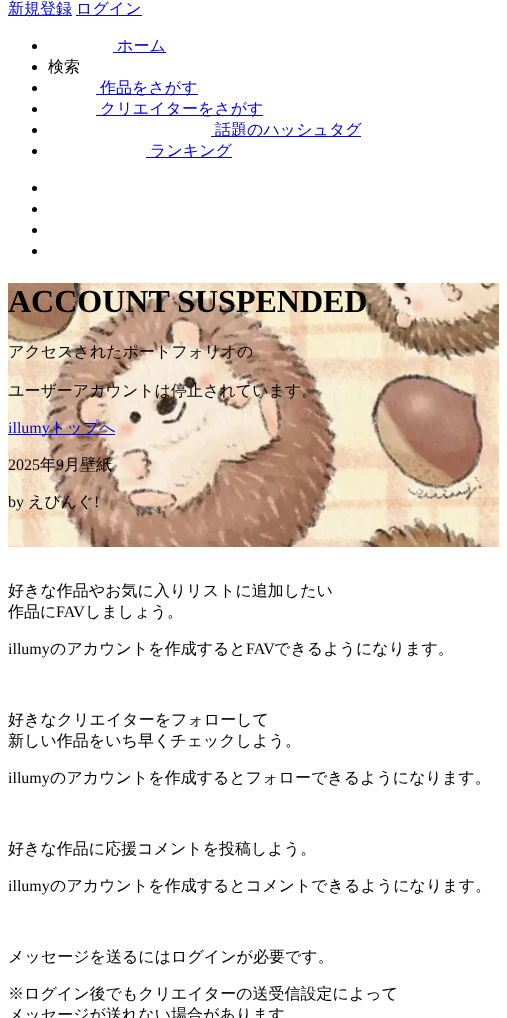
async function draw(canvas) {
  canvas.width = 507
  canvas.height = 1018
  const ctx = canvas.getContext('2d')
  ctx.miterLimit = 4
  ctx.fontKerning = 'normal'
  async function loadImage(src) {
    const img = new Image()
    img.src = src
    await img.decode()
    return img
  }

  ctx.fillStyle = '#fff'
  ctx.fillRect(0, 0, 507, 1018)
  ctx.fillStyle = '#00e'
  ctx.fillRect(8, 15, 64, 1)
  ctx.font = '500 16px WenQuanYi Zen Hei'
  ctx.fillText('新規登録', 8, 14)
  ctx.fillRect(76, 15, 66, 1)
  ctx.fillText('ログイン', 76, 14)
  ctx.fillStyle = '#000'
  ctx.beginPath()
  ctx.arc(34.5, 46.5, 2.5, 0, 2 * Math.PI)
  ctx.fill()
  ctx.fillStyle = '#00e'
  ctx.fillRect(113, 52, 53, 1)
  ctx.fillText('ホーム', 117, 51)
  ctx.fillStyle = '#000'
  ctx.beginPath()
  ctx.arc(34.5, 67.5, 2.5, 0, 2 * Math.PI)
  ctx.fill()
  ctx.fillText('検索', 48, 72)
  ctx.beginPath()
  ctx.arc(34.5, 88.5, 2.5, 0, 2 * Math.PI)
  ctx.fill()
  ctx.fillStyle = '#00e'
  ctx.fillRect(96, 94, 102, 1)
  ctx.fillText('作品をさがす', 100, 93)
  ctx.fillStyle = '#000'
  ctx.beginPath()
  ctx.arc(34.5, 109.5, 2.5, 0, 2 * Math.PI)
  ctx.fill()
  ctx.fillStyle = '#00e'
  ctx.fillRect(96, 115, 167, 1)
  ctx.fillText('クリエイターをさがす', 100, 114)
  ctx.fillStyle = '#000'
  ctx.beginPath()
  ctx.arc(34.5, 130.5, 2.5, 0, 2 * Math.PI)
  ctx.fill()
  ctx.fillStyle = '#00e'
  ctx.fillRect(211, 136, 150, 1)
  ctx.fillText('話題のハッシュタグ', 215, 135)
  ctx.fillStyle = '#000'
  ctx.beginPath()
  ctx.arc(34.5, 151.5, 2.5, 0, 2 * Math.PI)
  ctx.fill()
  ctx.fillStyle = '#00e'
  ctx.fillRect(146, 157, 86, 1)
  ctx.fillText('ランキング', 150, 156)
  ctx.fillStyle = '#000'
  ctx.beginPath()
  ctx.arc(34.5, 188.5, 2.5, 0, 2 * Math.PI)
  ctx.fill()
  ctx.beginPath()
  ctx.arc(34.5, 209.5, 2.5, 0, 2 * Math.PI)
  ctx.fill()
  ctx.beginPath()
  ctx.arc(34.5, 230.5, 2.5, 0, 2 * Math.PI)
  ctx.fill()
  ctx.beginPath()
  ctx.arc(34.5, 251.5, 2.5, 0, 2 * Math.PI)
  ctx.fill()
  ctx.drawImage(await loadImage('image0.png'), 8, 283, 491, 264)
  ctx.font = 'bold 32px Liberation Serif'
  ctx.fillText('ACCOUNT SUSPENDED', 8, 312)
  ctx.font = '500 16px WenQuanYi Zen Hei'
  ctx.fillText('アクセスされたポートフォリオの', 8, 357)
  ctx.fillText('ユーザーアカウントは停止されています。', 8, 396)
  ctx.fillStyle = '#00e'
  ctx.fillRect(8, 434, 107, 1)
  ctx.font = '16px Liberation Serif'
  ctx.fillText('illumy', 8, 433)
  ctx.font = '500 16px WenQuanYi Zen Hei'
  ctx.fillText('トップへ', 50, 433)
  ctx.font = '16px Liberation Serif'
  ctx.fillStyle = '#000'
  ctx.fillText('2025', 8, 470)
  ctx.font = '500 16px WenQuanYi Zen Hei'
  ctx.fillText('年', 40, 470)
  ctx.font = '16px Liberation Serif'
  ctx.fillText('9', 56, 470)
  ctx.font = '500 16px WenQuanYi Zen Hei'
  ctx.fillText('月壁紙', 64, 470)
  ctx.font = '16px Liberation Serif'
  ctx.fillText('by', 8, 507)
  ctx.font = '500 16px WenQuanYi Zen Hei'
  ctx.fillText('えびんぐ', 28, 507)
  ctx.font = '16px Liberation Serif'
  ctx.fillText('!', 94, 507)
  ctx.font = '500 16px WenQuanYi Zen Hei'
  ctx.fillText('好きな作品やお気に入りリストに追加したい', 8, 596)
  ctx.fillText('作品に', 8, 617)
  ctx.font = '16px Liberation Serif'
  ctx.fillText('FAV', 56, 617)
  ctx.font = '500 16px WenQuanYi Zen Hei'
  ctx.fillText('しましょう。', 85, 617)
  ctx.font = '16px Liberation Serif'
  ctx.fillText('illumy', 8, 654)
  ctx.font = '500 16px WenQuanYi Zen Hei'
  ctx.fillText('のアカウントを作成すると', 50, 654)
  ctx.font = '16px Liberation Serif'
  ctx.fillText('FAV', 246, 654)
  ctx.font = '500 16px WenQuanYi Zen Hei'
  ctx.fillText('できるようになります。', 274, 654)
  ctx.fillText('好きなクリエイターをフォローして', 8, 725)
  ctx.fillText('新しい作品をいち早くチェックしよう。', 8, 746)
  ctx.font = '16px Liberation Serif'
  ctx.fillText('illumy', 8, 783)
  ctx.font = '500 16px WenQuanYi Zen Hei'
  ctx.fillText('のアカウントを作成するとフォローできるようになります。', 50, 783)
  ctx.fillText('好きな作品に応援コメントを投稿しよう。', 8, 854)
  ctx.font = '16px Liberation Serif'
  ctx.fillText('illumy', 8, 891)
  ctx.font = '500 16px WenQuanYi Zen Hei'
  ctx.fillText('のアカウントを作成するとコメントできるようになります。', 50, 891)
  ctx.fillText('メッセージを送るにはログインが必要です。', 8, 962)
  ctx.fillText('※ログイン後でもクリエイターの送受信設定によって', 8, 999)
  ctx.fillText('メッセージが送れない場合があります', 8, 1020)
}

draw(document.querySelector('canvas'))
